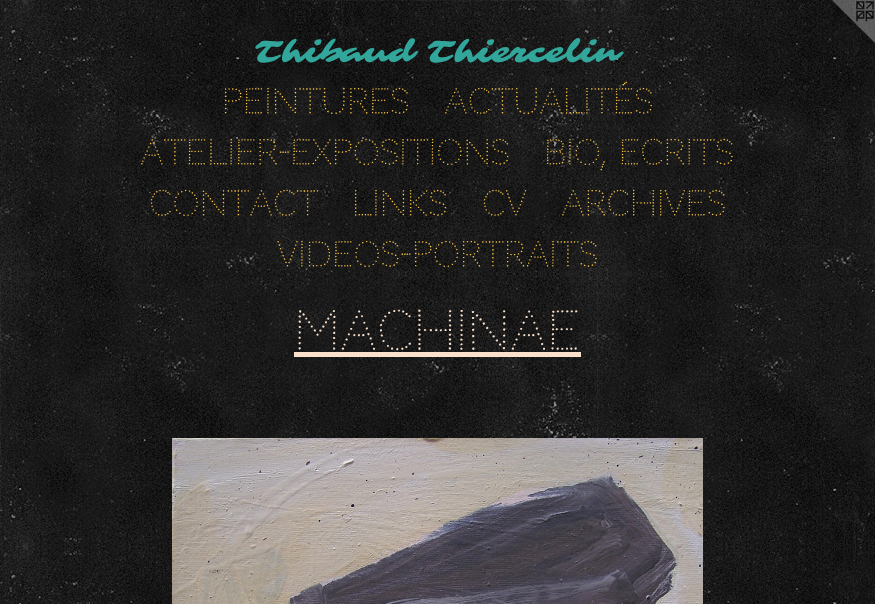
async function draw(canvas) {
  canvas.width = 875
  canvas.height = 604
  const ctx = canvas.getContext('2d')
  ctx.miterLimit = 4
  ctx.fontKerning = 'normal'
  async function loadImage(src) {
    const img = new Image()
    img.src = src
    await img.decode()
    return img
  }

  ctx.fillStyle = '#fff'
  ctx.fillRect(0, 0, 875, 604)
  ctx.drawImage(await loadImage('image0.png'), 0, 0, 875, 604)
  ctx.drawImage(await loadImage('image1.png'), 832, 0, 43, 43)
  ctx.font = '31px Sarina'
  ctx.fillStyle = '#32a69a'
  ctx.fillText('Thibaud Thiercelin', 255, 62)
  ctx.font = '34px Codystar'
  ctx.fillStyle = '#ffc843'
  ctx.fillText('Peintures', 222, 113)
  ctx.fillText('Actualités', 444, 113)
  ctx.fillText('Atelier-Expositions', 140, 164)
  ctx.fillText('Bio, Ecrits', 544, 164)
  ctx.fillText('Contact', 149, 215)
  ctx.fillText('LINKS', 352, 215)
  ctx.fillText('CV', 482, 215)
  ctx.fillText('Archives', 561, 215)
  ctx.fillText('Videos-portraits', 277, 266)
  ctx.font = '53px Codystar'
  ctx.fillStyle = '#f9e1cb'
  ctx.fillText('Machinae', 294, 349)
  ctx.fillRect(294, 352, 287, 5)
  ctx.drawImage(await loadImage('image2.png'), 172, 438, 531, 166)
}

draw(document.querySelector('canvas'))
